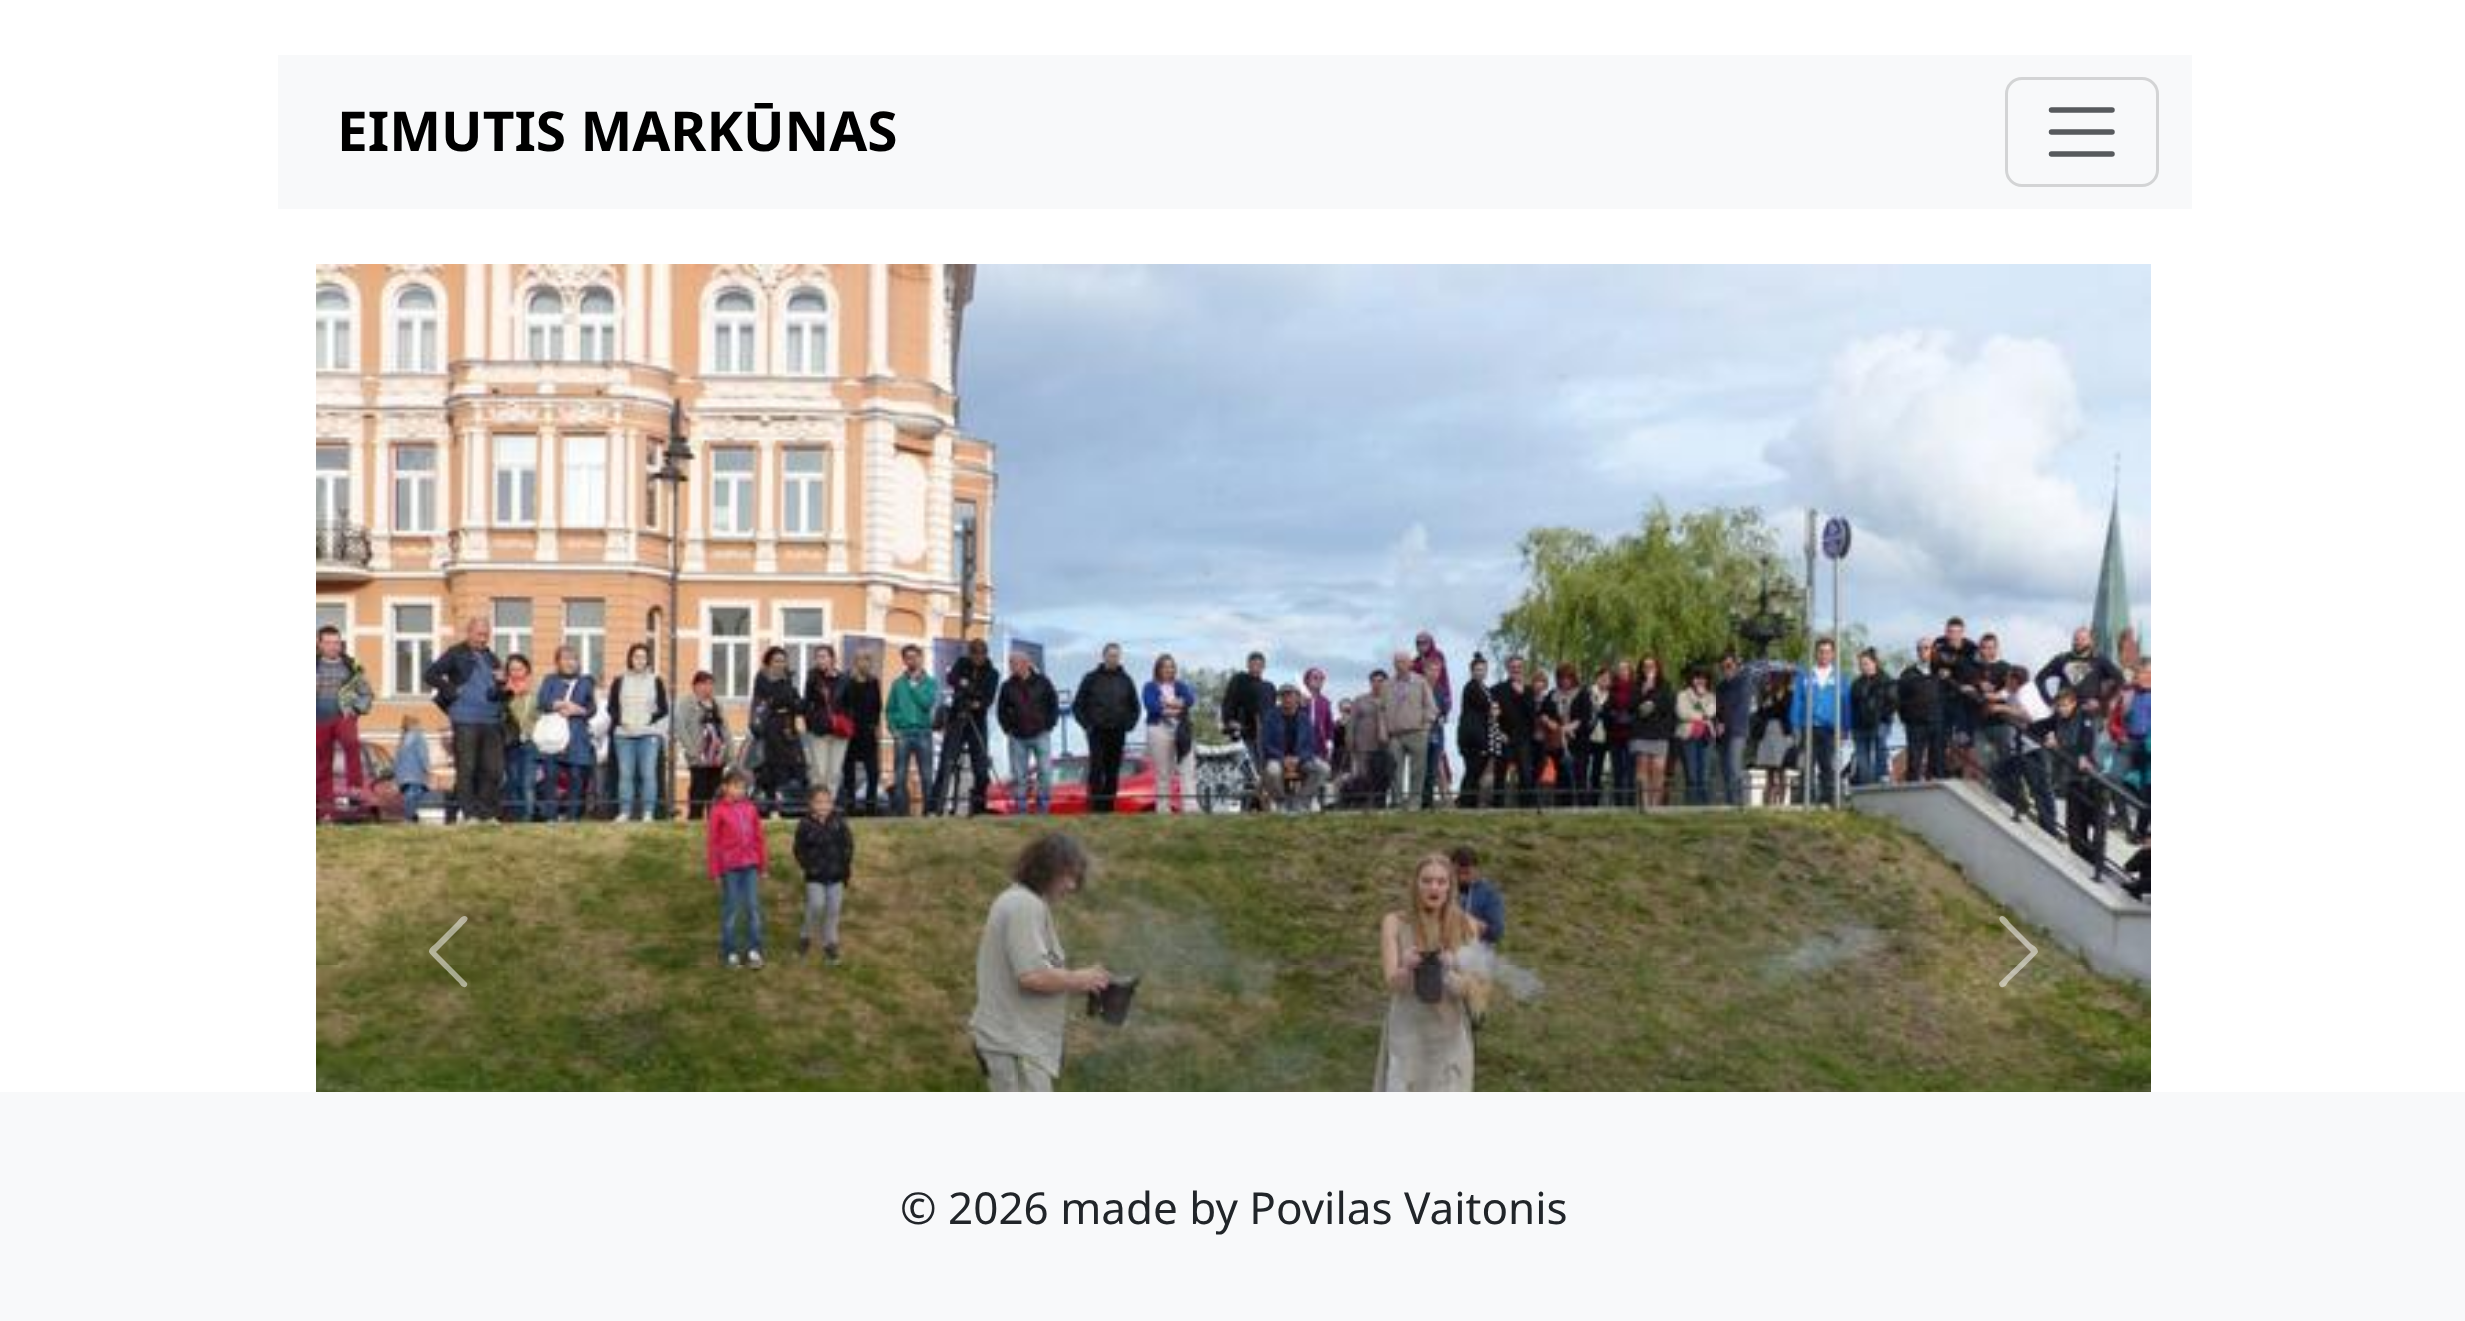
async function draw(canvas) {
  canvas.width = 2465
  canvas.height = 1321
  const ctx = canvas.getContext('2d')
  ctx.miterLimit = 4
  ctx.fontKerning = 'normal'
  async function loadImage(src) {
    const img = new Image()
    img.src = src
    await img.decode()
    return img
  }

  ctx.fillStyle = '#fff'
  ctx.fillRect(0, 0, 2465, 1321)
  ctx.fillStyle = '#f8f9fa'
  ctx.fillRect(278, 55, 1914, 154)
  ctx.font = 'bold 55px Noto Sans'
  ctx.fillStyle = '#000'
  ctx.fillText('EIMUTIS MARKŪNAS', 337, 151)
  ctx.beginPath()
  ctx.roundRect(2006.5, 78.5, 151, 107, 15.5)
  ctx.strokeStyle = '#d3d4d5'
  ctx.lineWidth = 3
  ctx.stroke()
  ctx.beginPath()
  ctx.moveTo(2051.5, 110)
  ctx.lineTo(2112, 110)
  ctx.moveTo(2051.5, 132)
  ctx.lineTo(2112, 132)
  ctx.moveTo(2051.5, 154)
  ctx.lineTo(2112, 154)
  ctx.strokeStyle = '#575a5d'
  ctx.lineWidth = 5.5
  ctx.lineCap = 'round'
  ctx.stroke()
  ctx.drawImage(await loadImage('image0.png'), 316, 264, 1835, 828)
  ctx.fillStyle = '#ffffff80'
  ctx.beginPath()
  ctx.moveTo(467, 917)
  ctx.bezierCurveTo(470, 920, 462, 925, 462, 926)
  ctx.lineTo(436, 952)
  ctx.lineTo(467, 983)
  ctx.bezierCurveTo(468, 985, 466, 988, 464, 987)
  ctx.bezierCurveTo(461, 987, 460, 983, 457, 981)
  ctx.bezierCurveTo(454, 977, 429, 954, 429, 952)
  ctx.bezierCurveTo(429, 948, 433, 946, 435, 944)
  ctx.lineTo(457, 922)
  ctx.bezierCurveTo(458, 921, 463, 913, 467, 917)
  ctx.closePath()
  ctx.fill()
  ctx.beginPath()
  ctx.moveTo(2000, 917)
  ctx.bezierCurveTo(2003, 913, 2009, 921, 2009, 922)
  ctx.lineTo(2031, 944)
  ctx.bezierCurveTo(2034, 946, 2038, 948, 2038, 952)
  ctx.bezierCurveTo(2038, 954, 2013, 977, 2009, 981)
  ctx.bezierCurveTo(2007, 983, 2006, 987, 2003, 987)
  ctx.bezierCurveTo(2000, 988, 1999, 985, 1999, 983)
  ctx.lineTo(2031, 952)
  ctx.lineTo(2005, 926)
  ctx.bezierCurveTo(2004, 925, 1997, 920, 2000, 917)
  ctx.closePath()
  ctx.fill()
  ctx.fillStyle = '#f8f9fa'
  ctx.fillRect(0, 1092, 2465, 229)
  ctx.font = '44px Noto Sans'
  ctx.fillStyle = '#212529'
  ctx.fillText('© 2026 made by Povilas Vaitonis', 900, 1224)
}

draw(document.querySelector('canvas'))
